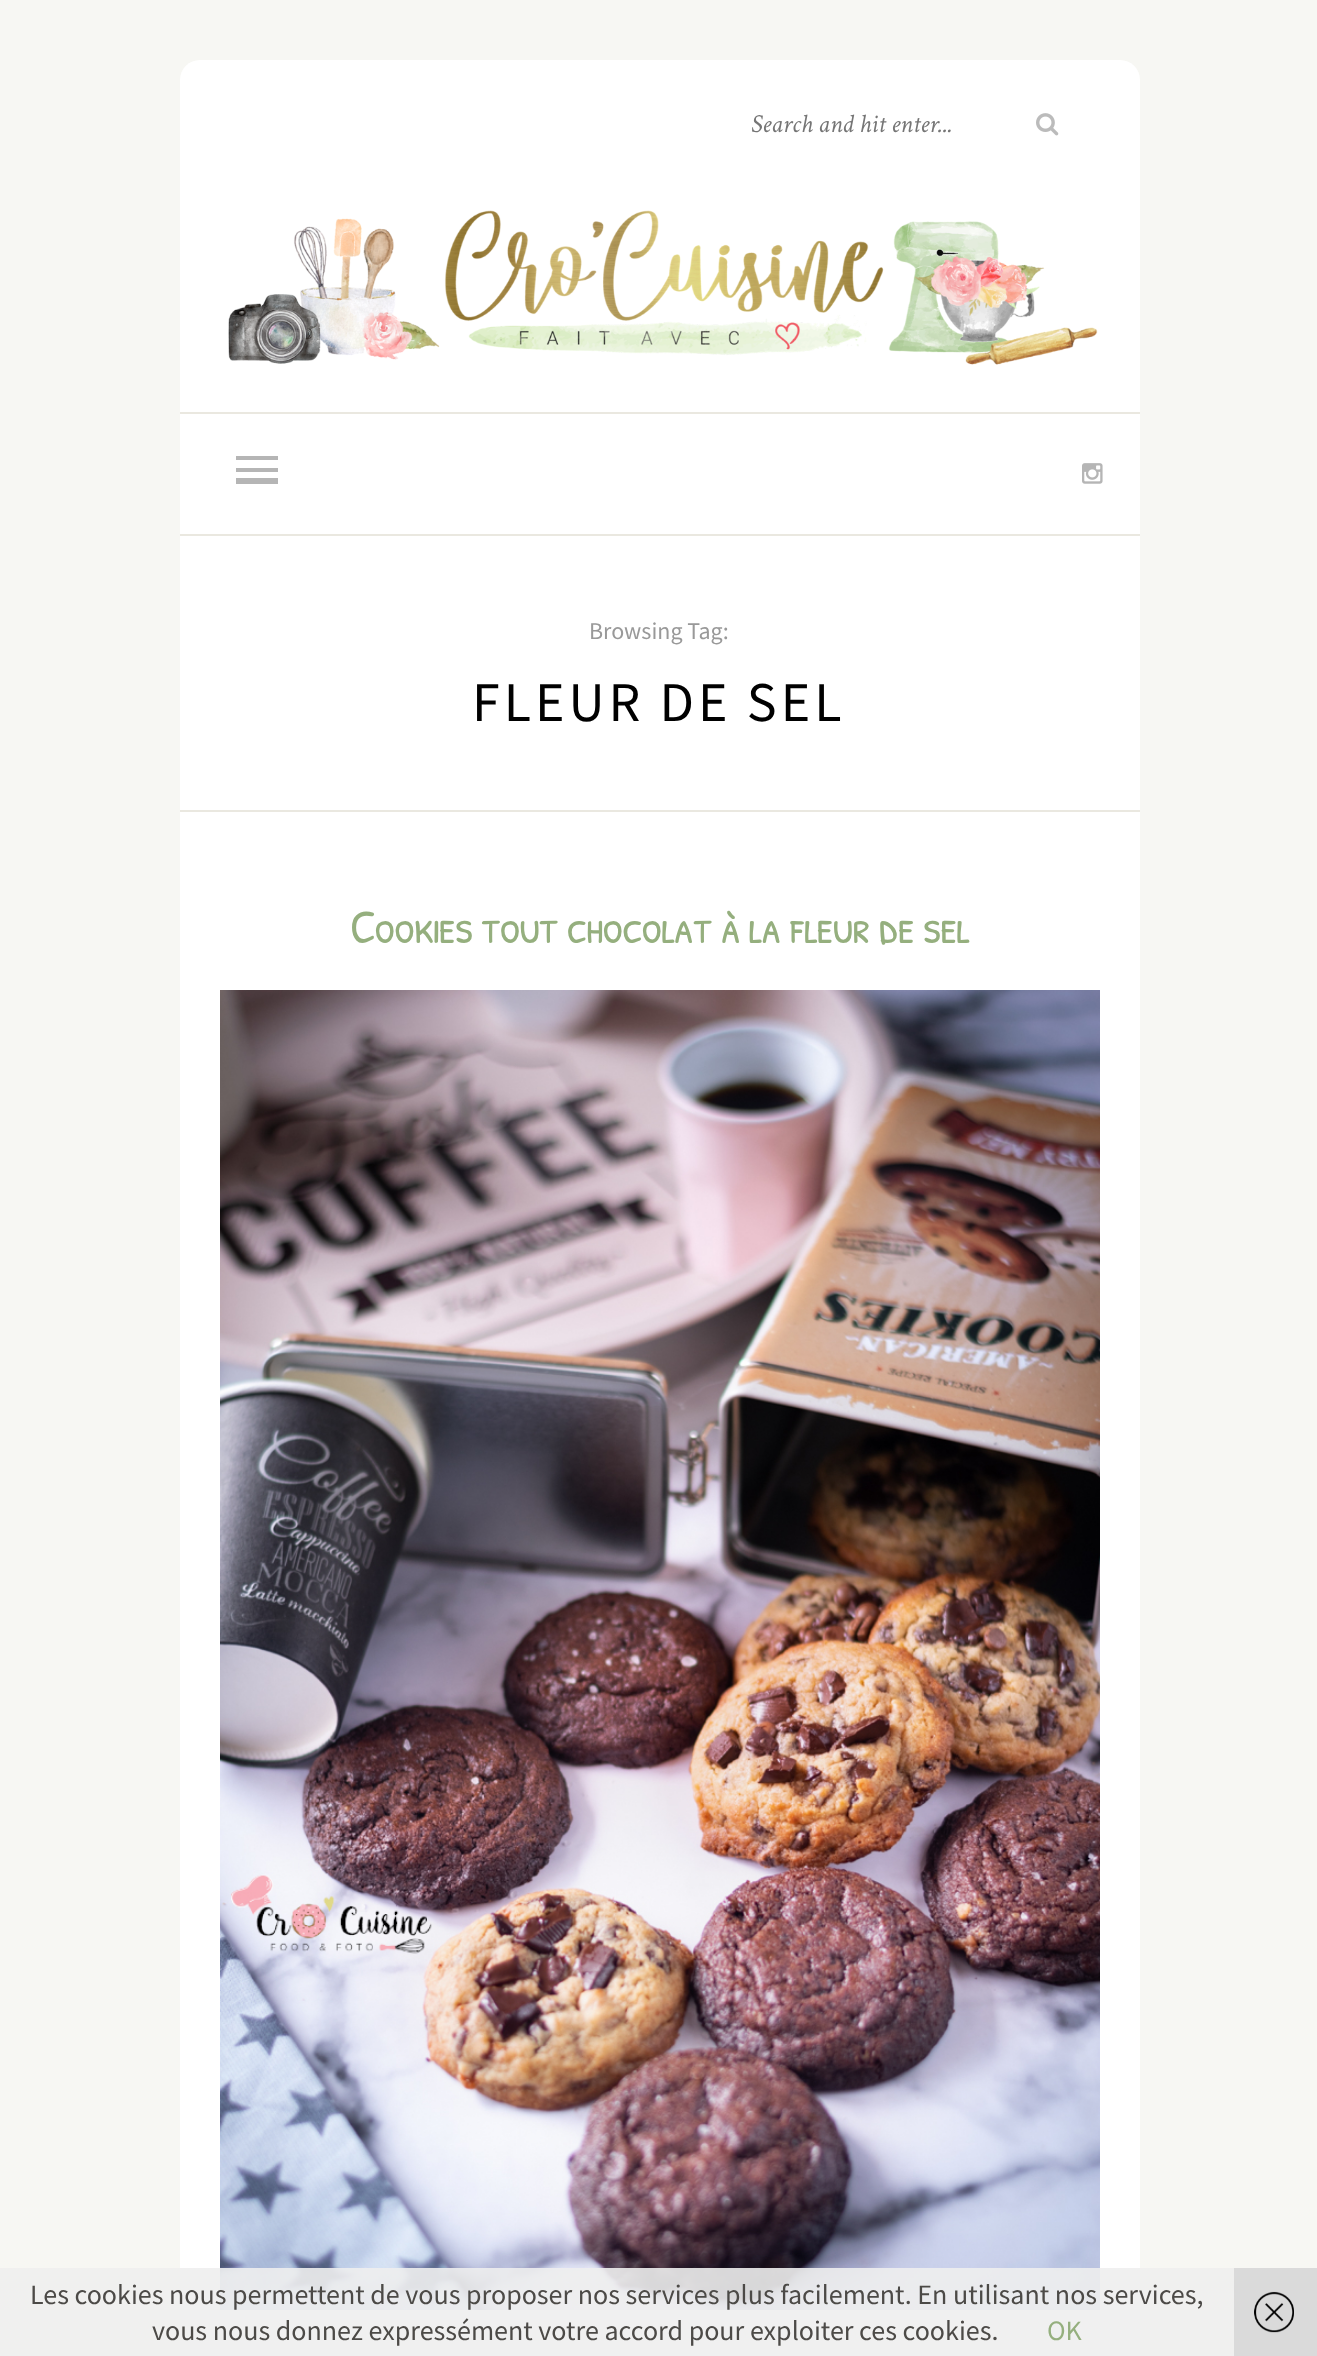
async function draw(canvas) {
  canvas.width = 1317
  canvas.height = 2356
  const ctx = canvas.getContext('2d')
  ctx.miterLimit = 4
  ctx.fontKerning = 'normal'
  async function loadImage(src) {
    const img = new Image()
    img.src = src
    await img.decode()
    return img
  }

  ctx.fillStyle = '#f7f7f3'
  ctx.fillRect(0, 0, 1317, 2356)
  ctx.fillStyle = '#fff'
  ctx.beginPath()
  ctx.roundRect(180, 60, 960, 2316, 20)
  ctx.fill()
  ctx.font = 'italic 26px Crimson Text'
  ctx.fillStyle = '#757575'
  ctx.fillText('Search and hit enter...', 751, 132)
  ctx.drawImage(await loadImage('image0.png'), 1036, 113, 23, 23)
  ctx.drawImage(await loadImage('image1.png'), 228, 210, 870, 155)
  ctx.fillStyle = '#eae8e0'
  ctx.fillRect(180, 412, 960, 2)
  ctx.fillRect(180, 534, 960, 2)
  ctx.fillStyle = '#b5b5b5'
  ctx.fillRect(236, 456, 42, 4)
  ctx.fillRect(236, 468, 42, 4)
  ctx.fillRect(236, 478, 42, 6)
  ctx.drawImage(await loadImage('image2.png'), 1082, 463, 21, 21)
  ctx.fillStyle = '#eae8e0'
  ctx.fillRect(180, 810, 960, 2)
  ctx.font = '24px Source Sans Pro'
  ctx.fillStyle = '#999'
  ctx.fillText('Browsing Tag:', 589, 639)
  ctx.letterSpacing = '4px'
  ctx.font = '56px Source Sans Pro'
  ctx.fillStyle = '#000'
  ctx.fillText('FLEUR DE SEL', 472, 721)
  ctx.letterSpacing = '-2px'
  ctx.font = '48px Patrick Hand SC'
  ctx.fillStyle = '#95af7e'
  ctx.fillText('Cookies tout chocolat à la fleur de sel', 350, 943)
  ctx.drawImage(await loadImage('image3.png'), 220, 990, 880, 1320)
  ctx.fillStyle = '#eeeeeee6'
  ctx.fillRect(0, 2268, 1234, 88)
  ctx.letterSpacing = '0px'
  ctx.font = '28px Source Sans Pro'
  ctx.fillStyle = '#4c4a47'
  ctx.fillText('Les cookies nous permettent de vous proposer nos services plus facilement. En utilisant nos services,', 30, 2304)
  ctx.fillText('vous nous donnez expressément votre accord pour exploiter ces cookies.', 152, 2340)
  ctx.fillStyle = '#95af7e'
  ctx.fillText('OK', 1047, 2340)
  ctx.fillStyle = '#dadada'
  ctx.fillRect(1234, 2268, 83, 88)
  ctx.drawImage(await loadImage('image4.png'), 1254, 2291, 40, 42)
}

draw(document.querySelector('canvas'))
